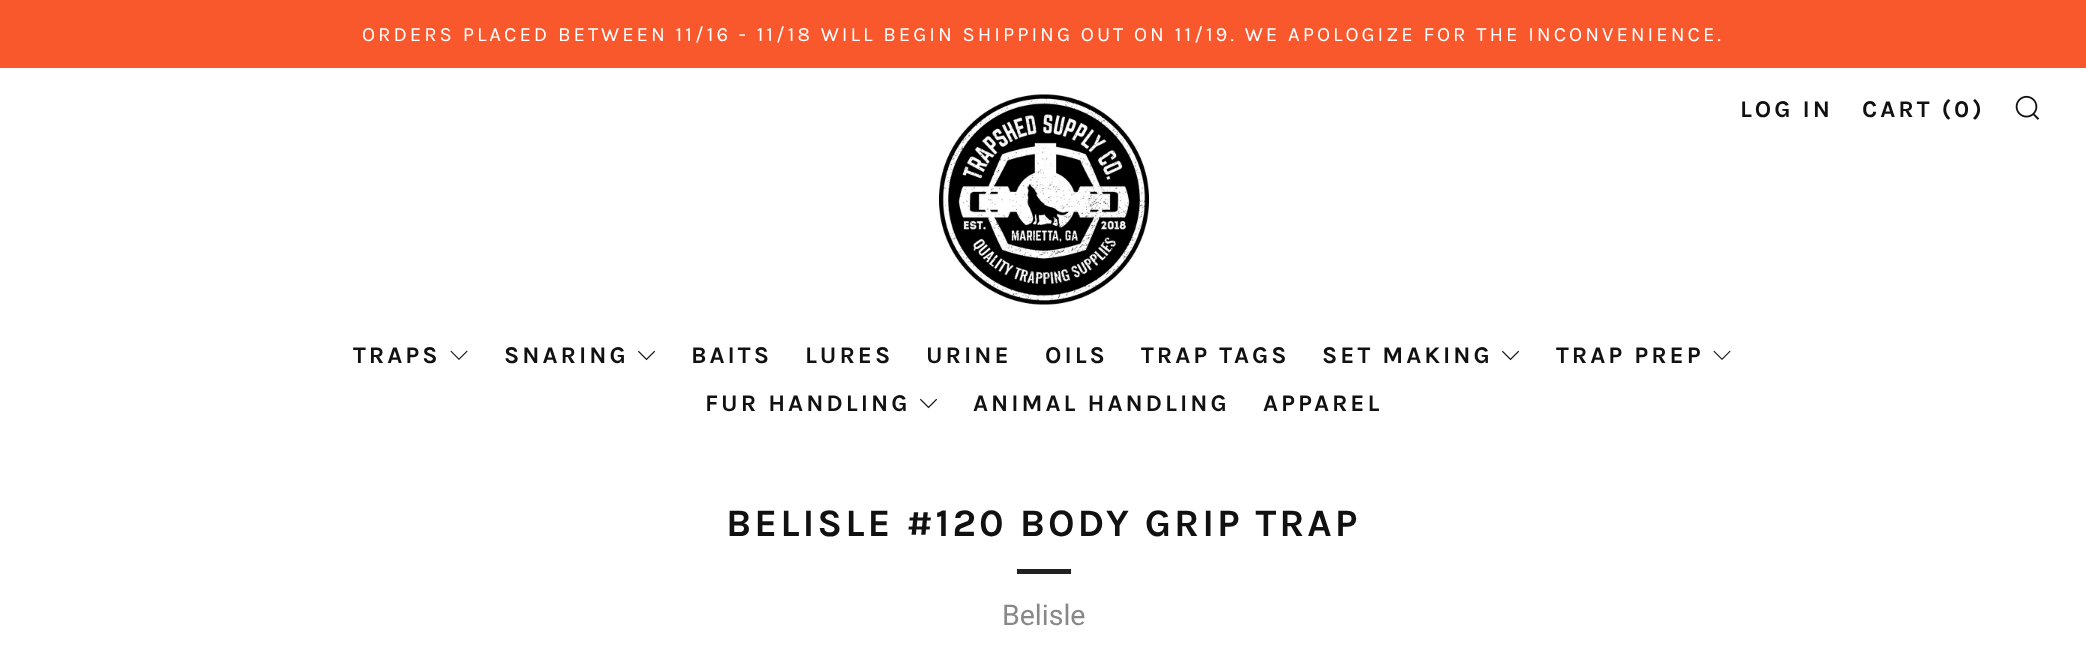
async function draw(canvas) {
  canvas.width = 2086
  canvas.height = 665
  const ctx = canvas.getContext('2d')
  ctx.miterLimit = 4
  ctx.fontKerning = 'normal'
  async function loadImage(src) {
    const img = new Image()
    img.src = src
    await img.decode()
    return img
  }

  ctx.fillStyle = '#fff'
  ctx.fillRect(0, 0, 2086, 665)
  ctx.fillStyle = '#f9572c'
  ctx.fillRect(0, 0, 2086, 68)
  ctx.letterSpacing = '3px'
  ctx.font = '20.25px Karla'
  ctx.fillStyle = '#fff'
  ctx.fillText('ORDERS PLACED BETWEEN 11/16 - 11/18 WILL BEGIN SHIPPING OUT ON 11/19. WE APOLOGIZE FOR THE INCONVENIENCE.', 362, 41)
  ctx.drawImage(await loadImage('image0.png'), 939, 94, 210, 211)
  ctx.font = 'bold 24px Karla'
  ctx.fillStyle = '#111'
  ctx.fillText('LOG IN', 1740, 117)
  ctx.fillText('CART (0)', 1862, 117)
  ctx.drawImage(await loadImage('image1.png'), 2015, 95, 25, 25)
  ctx.fillText('TRAPS', 353, 363)
  ctx.beginPath()
  ctx.moveTo(451, 350.5)
  ctx.lineTo(450.5, 351.5)
  ctx.lineTo(459, 360)
  ctx.lineTo(467.5, 351.5)
  ctx.lineTo(467, 350.5)
  ctx.lineTo(459, 358.5)
  ctx.closePath()
  ctx.fill()
  ctx.fillText('SNARING', 504, 363)
  ctx.drawImage(await loadImage('image2.png'), 637, 350, 19, 11)
  ctx.fillText('BAITS', 691, 363)
  ctx.fillText('LURES', 805, 363)
  ctx.fillText('URINE', 926, 363)
  ctx.fillText('OILS', 1045, 363)
  ctx.fillText('TRAP TAGS', 1141, 363)
  ctx.fillText('SET MAKING', 1322, 363)
  ctx.drawImage(await loadImage('image2.png'), 1501, 350, 19, 11)
  ctx.fillText('TRAP PREP', 1556, 363)
  ctx.beginPath()
  ctx.moveTo(1714, 350.5)
  ctx.lineTo(1713.5, 351.5)
  ctx.lineTo(1722, 360)
  ctx.lineTo(1730.5, 351.5)
  ctx.lineTo(1730, 350.5)
  ctx.lineTo(1722, 358.5)
  ctx.closePath()
  ctx.fill()
  ctx.fillText('FUR HANDLING', 705, 411)
  ctx.drawImage(await loadImage('image2.png'), 919, 398, 19, 11)
  ctx.fillText('ANIMAL HANDLING', 973, 411)
  ctx.fillText('APPAREL', 1263, 411)
  ctx.font = 'bold 39px Karla'
  ctx.fillText('BELISLE #120 BODY GRIP TRAP', 726, 536)
  ctx.fillStyle = '#212121'
  ctx.fillRect(1017, 569, 54, 5)
  ctx.letterSpacing = '0px'
  ctx.font = '28.5px Roboto'
  ctx.fillStyle = '#888'
  ctx.fillText('Belisle', 1002, 625)
}

draw(document.querySelector('canvas'))
